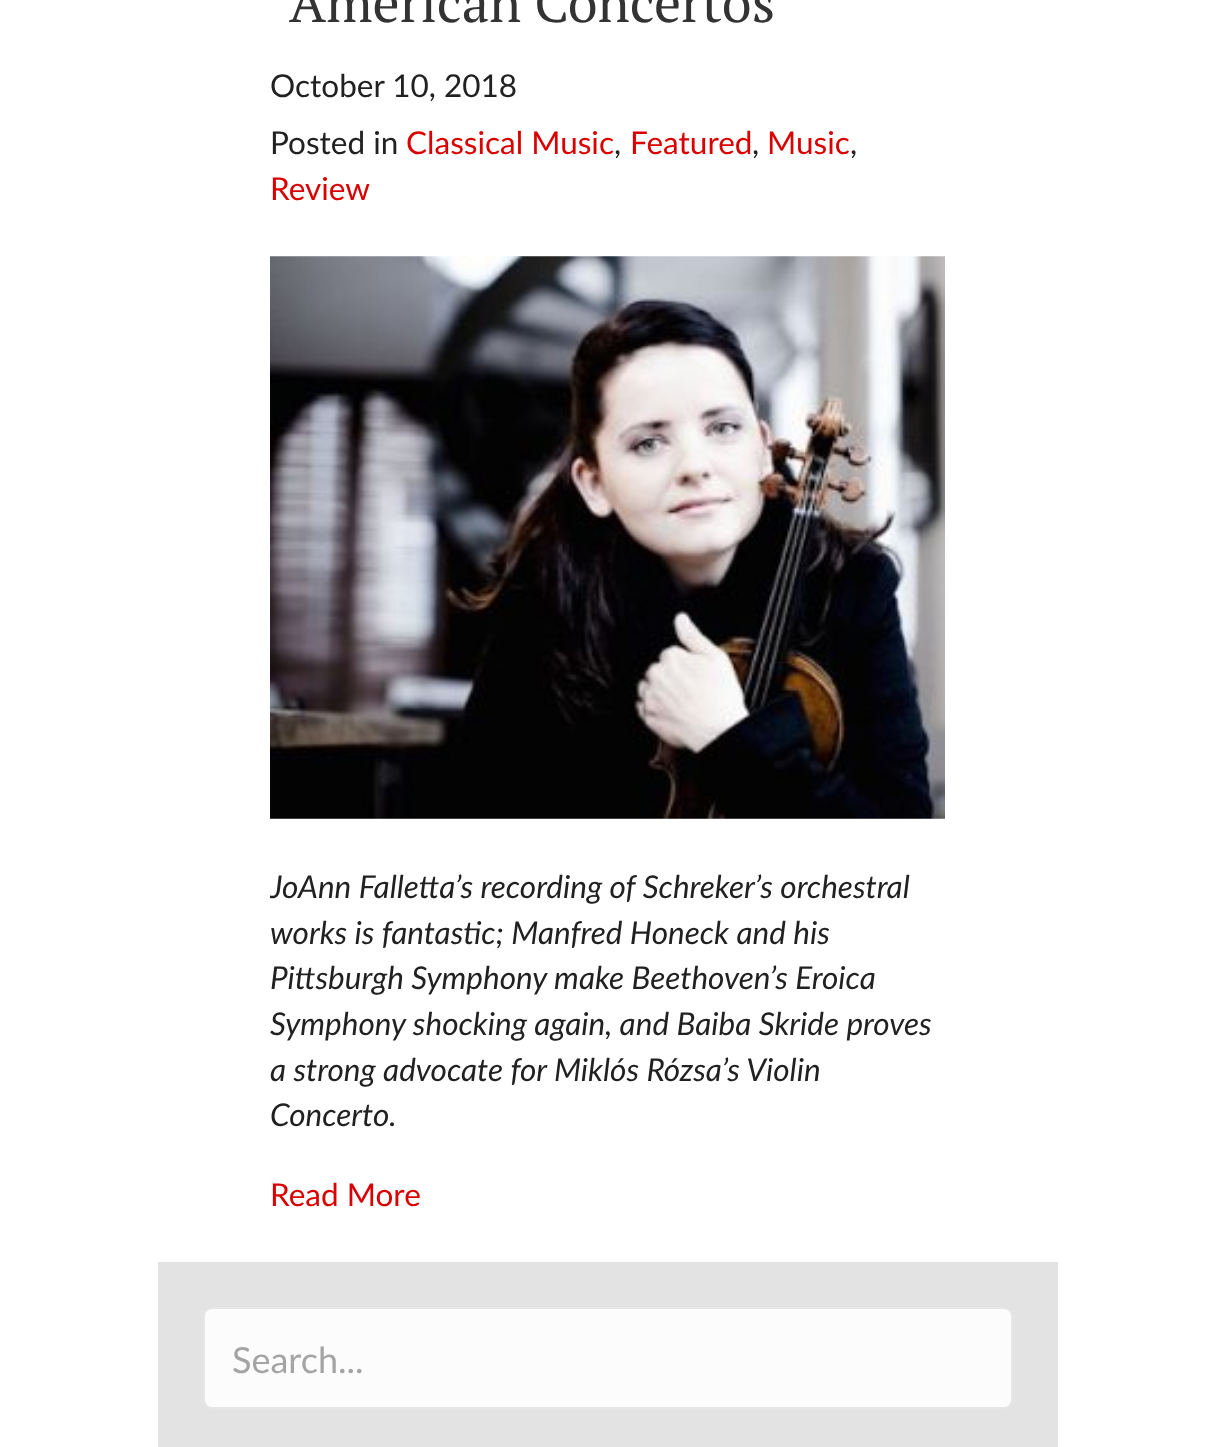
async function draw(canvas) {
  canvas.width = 1214
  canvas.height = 1447
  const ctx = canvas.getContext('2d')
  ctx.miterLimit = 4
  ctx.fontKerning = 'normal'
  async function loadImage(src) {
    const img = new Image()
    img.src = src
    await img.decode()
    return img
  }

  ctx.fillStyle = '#fff'
  ctx.fillRect(0, 0, 1214, 1447)
  ctx.font = '54px PT Serif'
  ctx.fillStyle = '#333'
  ctx.fillText('American Concertos', 289, 22)
  ctx.font = '31.5px Lato'
  ctx.fillStyle = '#212121'
  ctx.fillText('October 10, 2018', 270, 97)
  ctx.fillText('Posted in', 270, 154)
  ctx.fillStyle = '#db0000'
  ctx.fillText('Classical Music', 406, 154)
  ctx.fillStyle = '#212121'
  ctx.fillText(',', 614, 154)
  ctx.fillStyle = '#db0000'
  ctx.fillText('Featured', 630, 154)
  ctx.fillStyle = '#212121'
  ctx.fillText(',', 752, 154)
  ctx.fillStyle = '#db0000'
  ctx.fillText('Music', 767, 154)
  ctx.fillStyle = '#212121'
  ctx.fillText(',', 850, 154)
  ctx.fillStyle = '#db0000'
  ctx.fillText('Review', 270, 200)
  ctx.drawImage(await loadImage('image0.png'), 270, 256, 675, 563)
  ctx.save()
  ctx.beginPath()
  ctx.rect(270, 0, 675, 1217)
  ctx.clip()
  ctx.font = 'italic 31.5px Lato'
  ctx.fillStyle = '#212121'
  ctx.fillText('JoAnn Falletta’s recording of Schreker’s orchestral', 270, 898)
  ctx.restore()
  ctx.font = 'italic 31.5px Lato'
  ctx.fillStyle = '#212121'
  ctx.fillText('works is fantastic; Manfred Honeck and his', 270, 944)
  ctx.fillText('Pittsburgh Symphony make Beethoven’s Eroica', 270, 989)
  ctx.fillText('Symphony shocking again, and Baiba Skride proves', 270, 1035)
  ctx.fillText('a strong advocate for Miklós Rózsa’s Violin', 270, 1081)
  ctx.fillText('Concerto.', 270, 1126)
  ctx.font = '31.5px Lato'
  ctx.fillStyle = '#db0000'
  ctx.fillText('Read More', 270, 1206)
  ctx.fillStyle = '#e3e3e3'
  ctx.fillRect(158, 1262, 900, 185)
  ctx.fillStyle = '#fcfcfc'
  ctx.beginPath()
  ctx.roundRect(204, 1308, 808, 100, 8)
  ctx.fill()
  ctx.strokeStyle = '#e6e6e6'
  ctx.lineWidth = 2
  ctx.stroke()
  ctx.font = '36px Lato'
  ctx.fillStyle = '#a4a4a4'
  ctx.fillText('Search...', 232, 1373)
}

draw(document.querySelector('canvas'))
